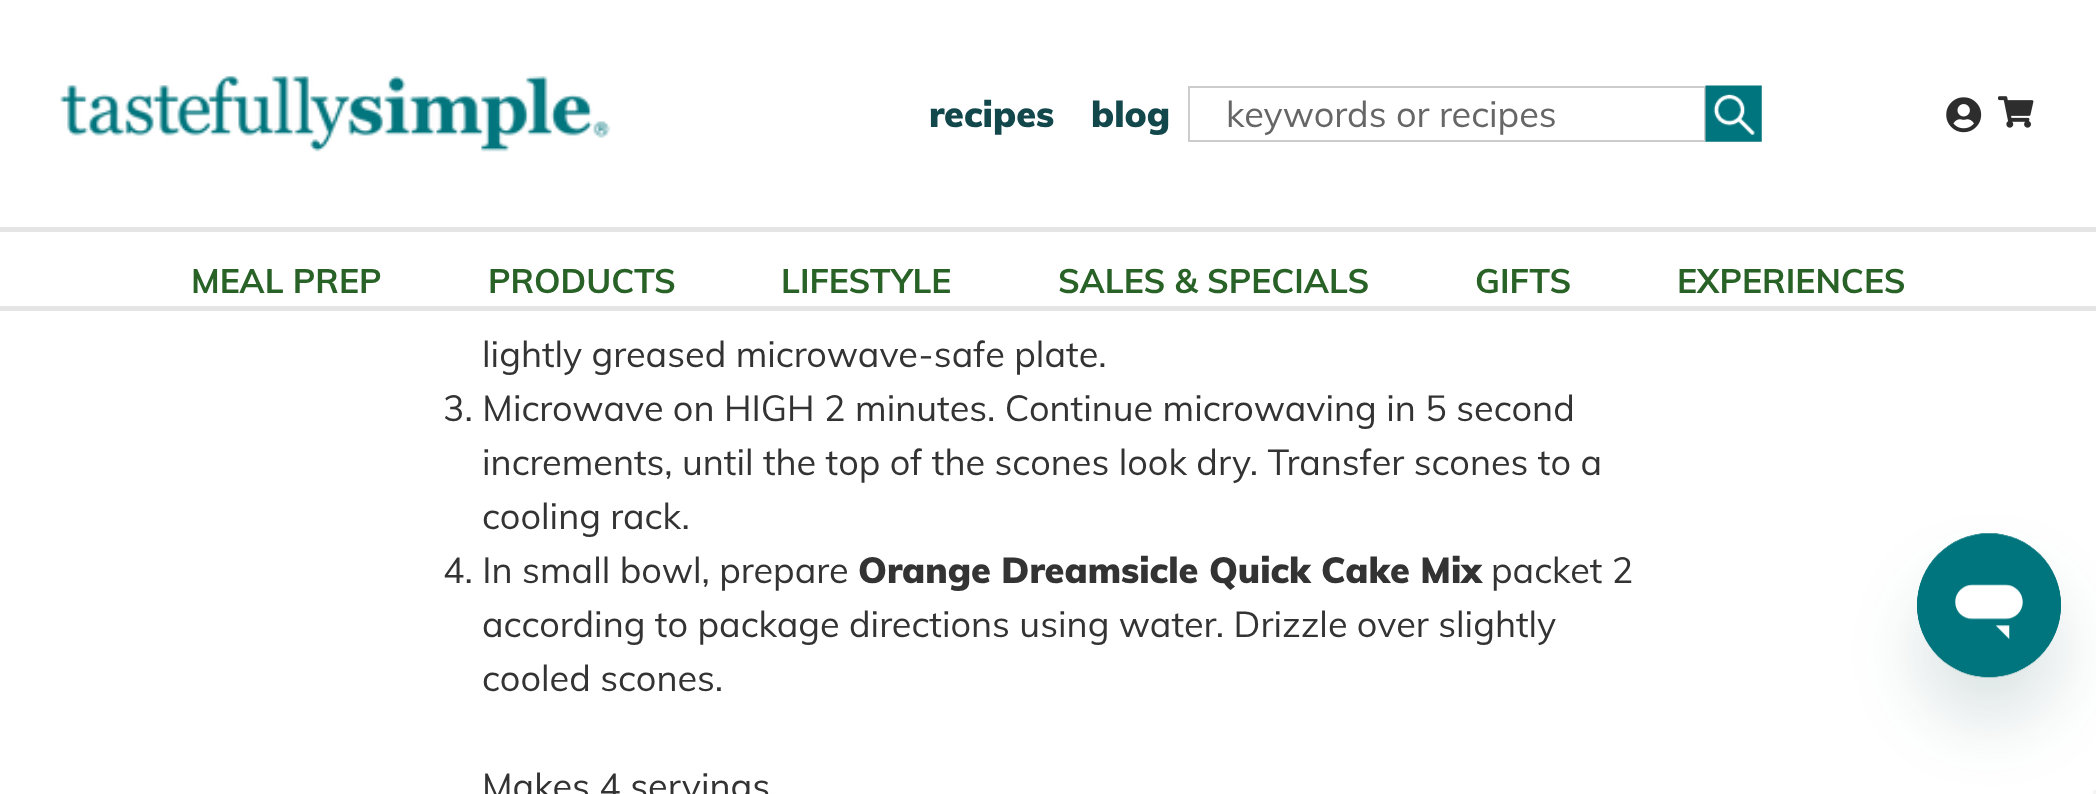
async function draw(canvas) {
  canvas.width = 2096
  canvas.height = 794
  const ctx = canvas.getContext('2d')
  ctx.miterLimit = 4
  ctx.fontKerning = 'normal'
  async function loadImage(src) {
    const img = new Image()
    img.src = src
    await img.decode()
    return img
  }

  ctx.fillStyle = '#fff'
  ctx.fillRect(0, 0, 2096, 794)
  ctx.drawImage(await loadImage('image0.png'), 60, 76, 551, 76)
  ctx.font = '900 36px Muli'
  ctx.fillStyle = '#12474b'
  ctx.fillText('recipes', 929, 127)
  ctx.fillText('blog', 1091, 127)
  ctx.strokeStyle = '#ccc'
  ctx.lineWidth = 2
  ctx.strokeRect(1189, 87, 516, 54)
  ctx.font = '36px Muli'
  ctx.fillStyle = '#666'
  ctx.fillText('keywords or recipes', 1226, 127)
  ctx.drawImage(await loadImage('image1.png'), 1705, 85, 57, 57)
  ctx.drawImage(await loadImage('image2.png'), 1946, 97, 36, 36)
  ctx.drawImage(await loadImage('image3.png'), 1998, 96, 36, 32)
  ctx.fillStyle = '#e5e5e5'
  ctx.fillRect(0, 227, 2096, 5)
  ctx.fillRect(0, 306, 2096, 5)
  ctx.font = 'bold 33.75px Muli'
  ctx.fillStyle = '#296227'
  ctx.fillText('MEAL PREP', 191, 293)
  ctx.fillText('PRODUCTS', 488, 293)
  ctx.fillText('LIFESTYLE', 781, 293)
  ctx.fillText('SALES & SPECIALS', 1058, 293)
  ctx.fillText('GIFTS', 1475, 293)
  ctx.fillText('EXPERIENCES', 1677, 293)
  ctx.font = '36px Muli'
  ctx.fillStyle = '#333'
  ctx.fillText('lightly greased microwave-safe plate.', 482, 367)
  ctx.fillText('3. Microwave on HIGH 2 minutes. Continue microwaving in 5 second', 443, 421)
  ctx.fillText('increments, until the top of the scones look dry. Transfer scones to a', 482, 475)
  ctx.fillText('cooling rack.', 482, 529)
  ctx.fillText('4. In small bowl, prepare', 443, 583)
  ctx.font = '900 36px Muli'
  ctx.fillText('Orange Dreamsicle Quick Cake Mix', 858, 583)
  ctx.font = '36px Muli'
  ctx.fillText('packet 2', 1491, 583)
  ctx.fillText('according to package directions using water. Drizzle over slightly', 482, 637)
  ctx.fillText('cooled scones.', 482, 691)
  ctx.fillText('Makes 4 servings', 482, 799)
  ctx.fillStyle = '#17494d26'
  ctx.filter = 'blur(34px)'
  ctx.beginPath()
  ctx.roundRect(1917, 578, 144, 144, 72)
  ctx.fill()
  ctx.filter = 'none'
  ctx.drawImage(await loadImage('image4.png'), 1917, 533, 144, 145)
  ctx.fillStyle = '#f5f5f5'
  ctx.fillRect(2093, 790, 3, 4)
}

draw(document.querySelector('canvas'))
